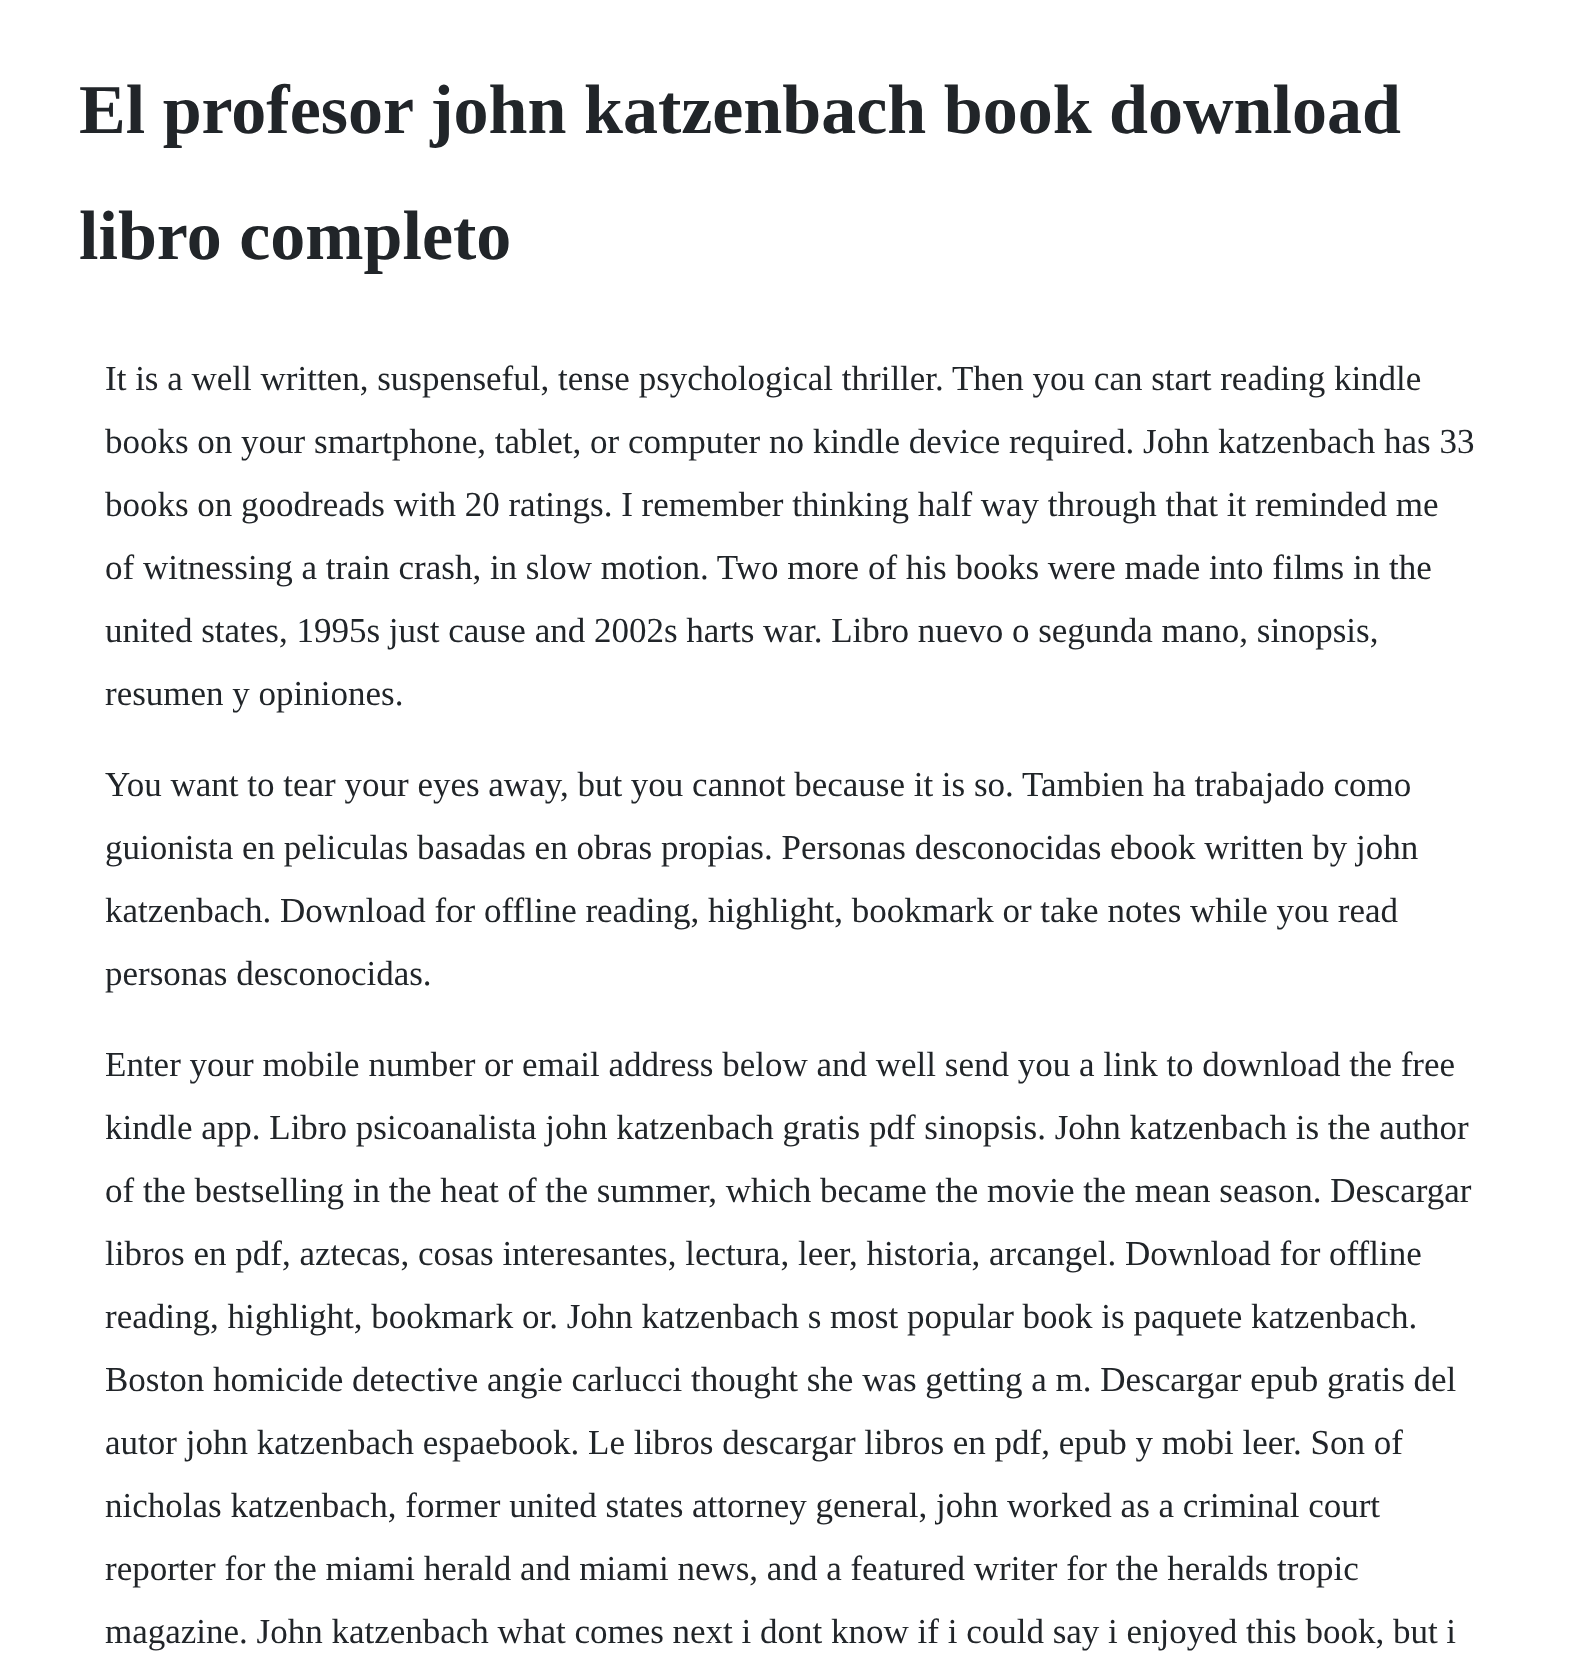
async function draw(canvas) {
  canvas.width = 1579
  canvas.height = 1659
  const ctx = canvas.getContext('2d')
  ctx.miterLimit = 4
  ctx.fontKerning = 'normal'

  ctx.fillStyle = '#fff'
  ctx.fillRect(0, 0, 1579, 1659)
  ctx.font = 'bold 70px Liberation Serif'
  ctx.fillStyle = '#212529'
  ctx.fillText('El profesor john katzenbach book download', 79, 133)
  ctx.fillText('libro completo', 79, 259)
  ctx.font = '35px Liberation Serif'
  ctx.fillText('It is a well written, suspenseful, tense psychological thriller. Then you can start reading kindle', 105, 390)
  ctx.fillText('books on your smartphone, tablet, or computer no kindle device required. John katzenbach has 33', 105, 453)
  ctx.fillText('books on goodreads with 20 ratings. I remember thinking half way through that it reminded me', 105, 516)
  ctx.fillText('of witnessing a train crash, in slow motion. Two more of his books were made into films in the', 105, 579)
  ctx.fillText('united states, 1995s just cause and 2002s harts war. Libro nuevo o segunda mano, sinopsis,', 105, 642)
  ctx.fillText('resumen y opiniones.', 105, 705)
  ctx.fillText('You want to tear your eyes away, but you cannot because it is so. Tambien ha trabajado como', 105, 796)
  ctx.fillText('guionista en peliculas basadas en obras propias. Personas desconocidas ebook written by john', 105, 859)
  ctx.fillText('katzenbach. Download for offline reading, highlight, bookmark or take notes while you read', 105, 922)
  ctx.fillText('personas desconocidas.', 105, 985)
  ctx.fillText('Enter your mobile number or email address below and well send you a link to download the free', 105, 1076)
  ctx.fillText('kindle app. Libro psicoanalista john katzenbach gratis pdf sinopsis. John katzenbach is the author', 105, 1139)
  ctx.fillText('of the bestselling in the heat of the summer, which became the movie the mean season. Descargar', 105, 1202)
  ctx.fillText('libros en pdf, aztecas, cosas interesantes, lectura, leer, historia, arcangel. Download for offline', 105, 1265)
  ctx.fillText('reading, highlight, bookmark or. John katzenbach s most popular book is paquete katzenbach.', 105, 1328)
  ctx.fillText('Boston homicide detective angie carlucci thought she was getting a m. Descargar epub gratis del', 105, 1391)
  ctx.fillText('autor john katzenbach espaebook. Le libros descargar libros en pdf, epub y mobi leer. Son of', 105, 1454)
  ctx.fillText('nicholas katzenbach, former united states attorney general, john worked as a criminal court', 105, 1517)
  ctx.fillText('reporter for the miami herald and miami news, and a featured writer for the heralds tropic', 105, 1580)
  ctx.fillText('magazine. John katzenbach what comes next i dont know if i could say i enjoyed this book, but i', 105, 1643)
}

draw(document.querySelector('canvas'))
